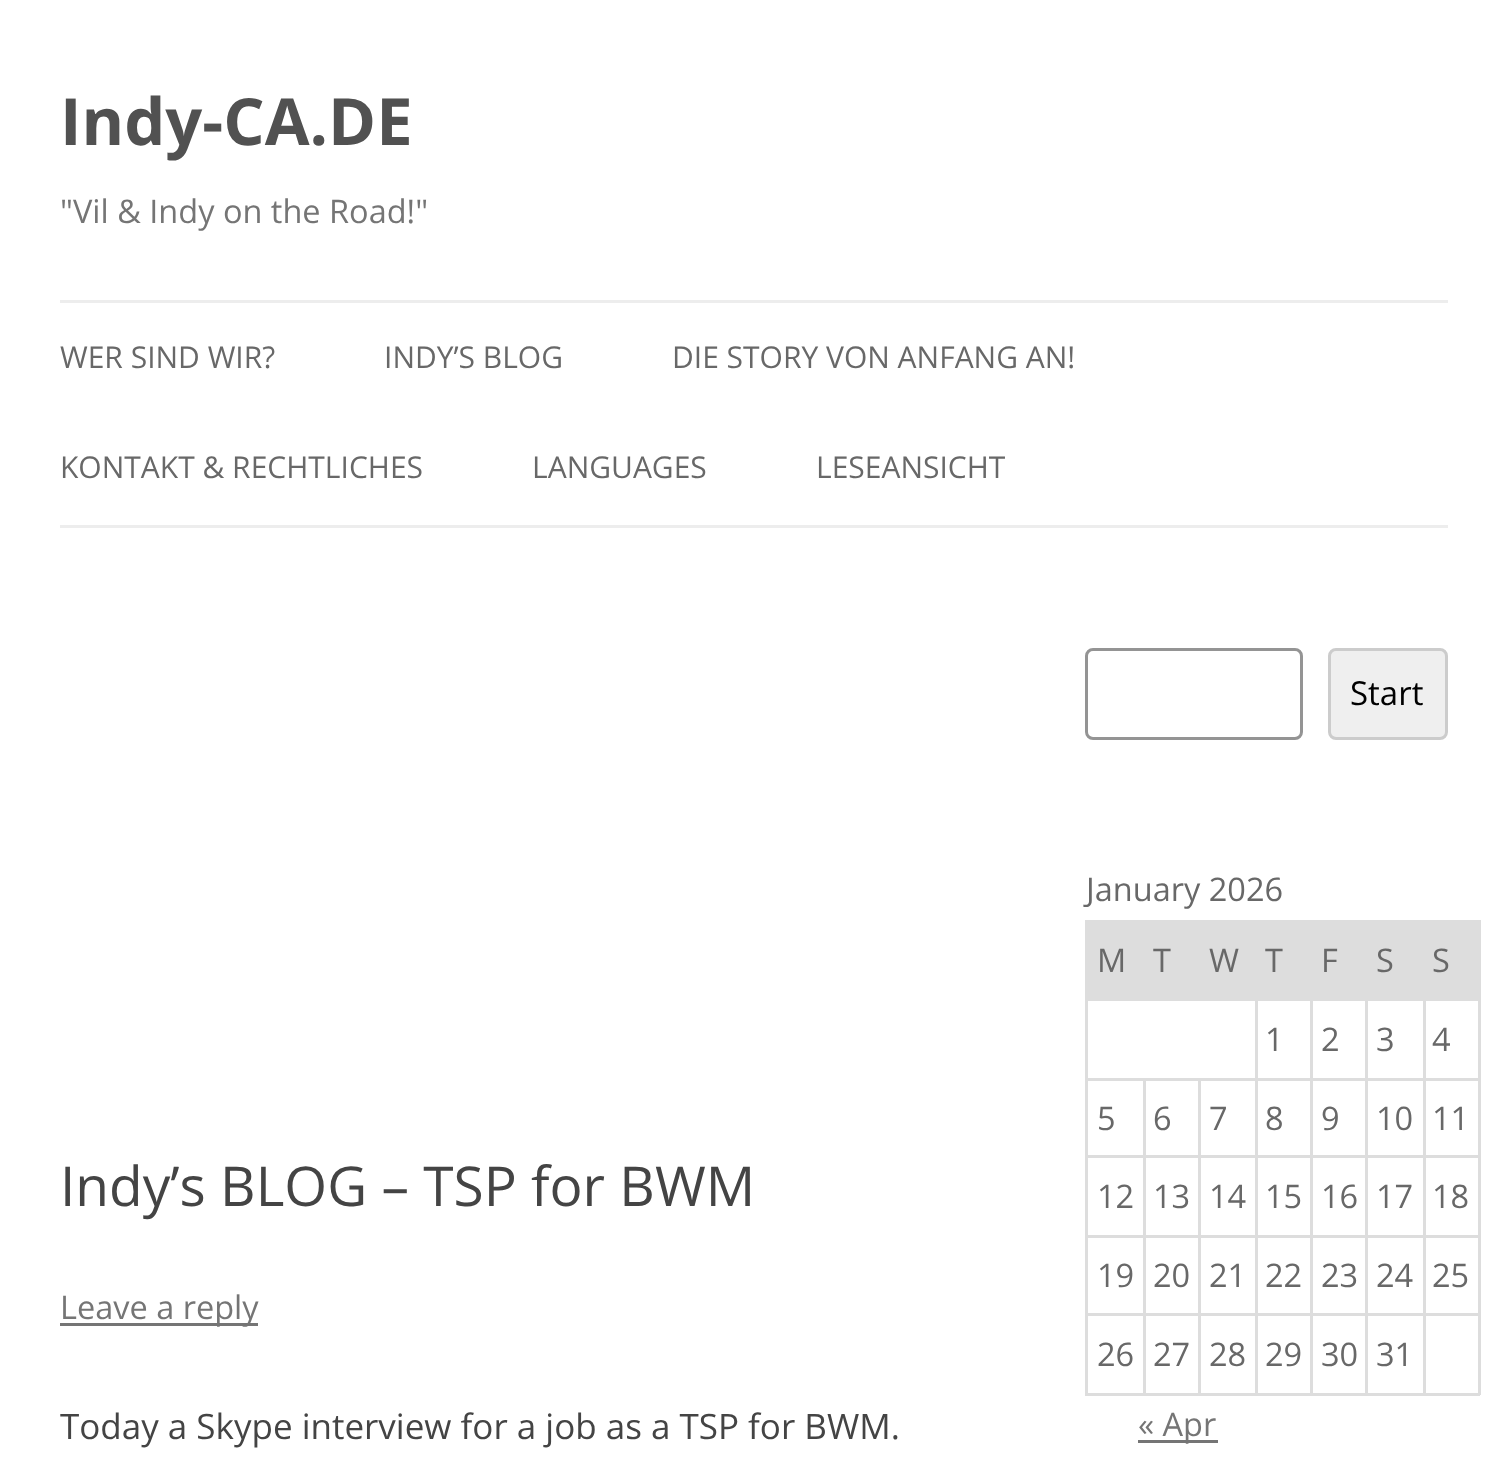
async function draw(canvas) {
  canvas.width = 1506
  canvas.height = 1469
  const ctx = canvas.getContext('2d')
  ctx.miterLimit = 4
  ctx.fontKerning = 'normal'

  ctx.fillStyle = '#fff'
  ctx.fillRect(0, 0, 1506, 1469)
  ctx.font = 'bold 65px Open Sans'
  ctx.fillStyle = '#515151'
  ctx.fillText('Indy-CA.DE', 60, 145)
  ctx.font = '32.5px Open Sans'
  ctx.fillStyle = '#757575'
  ctx.fillText('"Vil & Indy on the Road!"', 60, 223)
  ctx.fillStyle = '#ededed'
  ctx.fillRect(60, 300, 1388, 3)
  ctx.fillRect(60, 525, 1388, 3)
  ctx.font = '30px Open Sans'
  ctx.fillStyle = '#686868'
  ctx.fillText('WER SIND WIR?', 60, 368)
  ctx.fillText('INDY’S BLOG', 384, 368)
  ctx.fillText('DIE STORY VON ANFANG AN!', 672, 368)
  ctx.fillText('KONTAKT & RECHTLICHES', 60, 478)
  ctx.fillText('LANGUAGES', 532, 478)
  ctx.fillText('LESEANSICHT', 816, 478)
  ctx.font = '55px Open Sans'
  ctx.fillStyle = '#444'
  ctx.fillText('Indy’s BLOG – TSP for BWM', 60, 1206)
  ctx.fillStyle = '#757575'
  ctx.fillRect(60, 1323, 198, 3)
  ctx.font = '32.5px Open Sans'
  ctx.fillText('Leave a reply', 60, 1319)
  ctx.font = '35px Open Sans'
  ctx.fillStyle = '#444'
  ctx.fillText('Today a Skype interview for a job as a TSP for BWM.', 60, 1439)
  ctx.beginPath()
  ctx.roundRect(1086.5, 649.5, 215, 89, 6.5)
  ctx.strokeStyle = '#949494'
  ctx.lineWidth = 3
  ctx.stroke()
  ctx.fillStyle = '#efefef'
  ctx.beginPath()
  ctx.roundRect(1329.5, 649.5, 117, 89, 6.5)
  ctx.fill()
  ctx.strokeStyle = '#ccc'
  ctx.stroke()
  ctx.font = '33px Open Sans'
  ctx.fillStyle = '#000'
  ctx.fillText('Start', 1350, 705)
  ctx.font = '32.5px Open Sans'
  ctx.fillStyle = '#686868'
  ctx.fillText('January 2026', 1086, 901)
  ctx.fillStyle = '#ddd'
  ctx.fillRect(1088, 923, 55, 75)
  ctx.fillRect(1143, 920, 335, 78)
  ctx.fillRect(1085, 920, 60, 3)
  ctx.fillRect(1423, 998, 57, 3)
  ctx.fillRect(1423, 1078, 57, 3)
  ctx.fillRect(1423, 1155, 57, 3)
  ctx.fillRect(1423, 1235, 57, 3)
  ctx.fillRect(1423, 1313, 57, 3)
  ctx.fillRect(1478, 1313, 3, 82)
  ctx.fillRect(1423, 1393, 57, 3)
  ctx.fillRect(1423, 1313, 3, 82)
  ctx.fillRect(1365, 1313, 60, 3)
  ctx.fillRect(1423, 1235, 3, 80)
  ctx.fillRect(1365, 1235, 60, 3)
  ctx.fillRect(1423, 1155, 3, 83)
  ctx.fillRect(1365, 1155, 60, 3)
  ctx.fillRect(1423, 1078, 3, 80)
  ctx.fillRect(1365, 1078, 60, 3)
  ctx.fillRect(1423, 998, 3, 82)
  ctx.fillRect(1365, 998, 60, 3)
  ctx.fillRect(1365, 1393, 60, 3)
  ctx.fillRect(1365, 1313, 3, 82)
  ctx.fillRect(1310, 1313, 58, 3)
  ctx.fillRect(1365, 1235, 3, 80)
  ctx.fillRect(1310, 1235, 58, 3)
  ctx.fillRect(1365, 1155, 3, 83)
  ctx.fillRect(1310, 1155, 58, 3)
  ctx.fillRect(1365, 1078, 3, 80)
  ctx.fillRect(1310, 1078, 58, 3)
  ctx.fillRect(1365, 998, 3, 82)
  ctx.fillRect(1310, 998, 58, 3)
  ctx.fillRect(1310, 1393, 58, 3)
  ctx.fillRect(1310, 1313, 3, 82)
  ctx.fillRect(1255, 1313, 58, 3)
  ctx.fillRect(1310, 1235, 3, 80)
  ctx.fillRect(1255, 1235, 58, 3)
  ctx.fillRect(1310, 1155, 3, 83)
  ctx.fillRect(1255, 1155, 58, 3)
  ctx.fillRect(1310, 1078, 3, 80)
  ctx.fillRect(1255, 1078, 58, 3)
  ctx.fillRect(1310, 998, 3, 82)
  ctx.fillRect(1255, 998, 58, 3)
  ctx.fillRect(1255, 1393, 58, 3)
  ctx.fillRect(1255, 1313, 3, 82)
  ctx.fillRect(1198, 1313, 60, 3)
  ctx.fillRect(1255, 1235, 3, 80)
  ctx.fillRect(1198, 1235, 60, 3)
  ctx.fillRect(1255, 1155, 3, 83)
  ctx.fillRect(1198, 1155, 60, 3)
  ctx.fillRect(1255, 1078, 3, 80)
  ctx.fillRect(1198, 1078, 60, 3)
  ctx.fillRect(1255, 998, 3, 82)
  ctx.fillRect(1085, 998, 173, 3)
  ctx.fillRect(1198, 1393, 60, 3)
  ctx.fillRect(1198, 1313, 3, 82)
  ctx.fillRect(1143, 1313, 57, 3)
  ctx.fillRect(1198, 1235, 3, 80)
  ctx.fillRect(1143, 1235, 57, 3)
  ctx.fillRect(1198, 1155, 3, 83)
  ctx.fillRect(1143, 1155, 57, 3)
  ctx.fillRect(1198, 1078, 3, 80)
  ctx.fillRect(1143, 1078, 57, 3)
  ctx.fillRect(1143, 1393, 57, 3)
  ctx.fillRect(1143, 1313, 3, 82)
  ctx.fillRect(1085, 1313, 60, 3)
  ctx.fillRect(1143, 1235, 3, 80)
  ctx.fillRect(1085, 1235, 60, 3)
  ctx.fillRect(1143, 1155, 3, 83)
  ctx.fillRect(1085, 1155, 60, 3)
  ctx.fillRect(1143, 1078, 3, 80)
  ctx.fillRect(1085, 1078, 60, 3)
  ctx.fillRect(1085, 1393, 60, 3)
  ctx.fillRect(1085, 1313, 3, 82)
  ctx.fillRect(1085, 1235, 3, 80)
  ctx.fillRect(1085, 1155, 3, 83)
  ctx.fillRect(1085, 1078, 3, 80)
  ctx.fillRect(1085, 998, 3, 82)
  ctx.fillRect(1085, 920, 3, 80)
  ctx.fillStyle = '#686868'
  ctx.fillText('M', 1097, 972)
  ctx.fillText('T', 1153, 972)
  ctx.fillText('W', 1209, 972)
  ctx.fillText('T', 1265, 972)
  ctx.fillText('F', 1321, 972)
  ctx.fillText('S', 1376, 972)
  ctx.fillText('S', 1432, 972)
  ctx.fillText('1', 1265, 1051)
  ctx.fillText('2', 1321, 1051)
  ctx.fillText('3', 1376, 1051)
  ctx.fillStyle = '#ddd'
  ctx.fillRect(1478, 1235, 3, 80)
  ctx.fillRect(1478, 1155, 3, 83)
  ctx.fillRect(1478, 1078, 3, 80)
  ctx.fillRect(1478, 920, 3, 160)
  ctx.fillStyle = '#686868'
  ctx.fillText('4', 1432, 1051)
  ctx.fillText('5', 1097, 1130)
  ctx.fillText('6', 1153, 1130)
  ctx.fillText('7', 1209, 1130)
  ctx.fillText('8', 1265, 1130)
  ctx.fillText('9', 1321, 1130)
  ctx.fillText('10', 1376, 1130)
  ctx.fillText('11', 1432, 1130)
  ctx.fillText('12', 1097, 1208)
  ctx.fillText('13', 1153, 1208)
  ctx.fillText('14', 1209, 1208)
  ctx.fillText('15', 1265, 1208)
  ctx.fillText('16', 1321, 1208)
  ctx.fillText('17', 1376, 1208)
  ctx.fillText('18', 1432, 1208)
  ctx.fillText('19', 1097, 1287)
  ctx.fillText('20', 1153, 1287)
  ctx.fillText('21', 1209, 1287)
  ctx.fillText('22', 1265, 1287)
  ctx.fillText('23', 1321, 1287)
  ctx.fillText('24', 1376, 1287)
  ctx.fillText('25', 1432, 1287)
  ctx.fillText('26', 1097, 1366)
  ctx.fillText('27', 1153, 1366)
  ctx.fillText('28', 1209, 1366)
  ctx.fillText('29', 1265, 1366)
  ctx.fillText('30', 1321, 1366)
  ctx.fillText('31', 1376, 1366)
  ctx.fillStyle = '#757575'
  ctx.fillRect(1138, 1440, 80, 3)
  ctx.fillText('« Apr', 1138, 1436)
}

draw(document.querySelector('canvas'))
